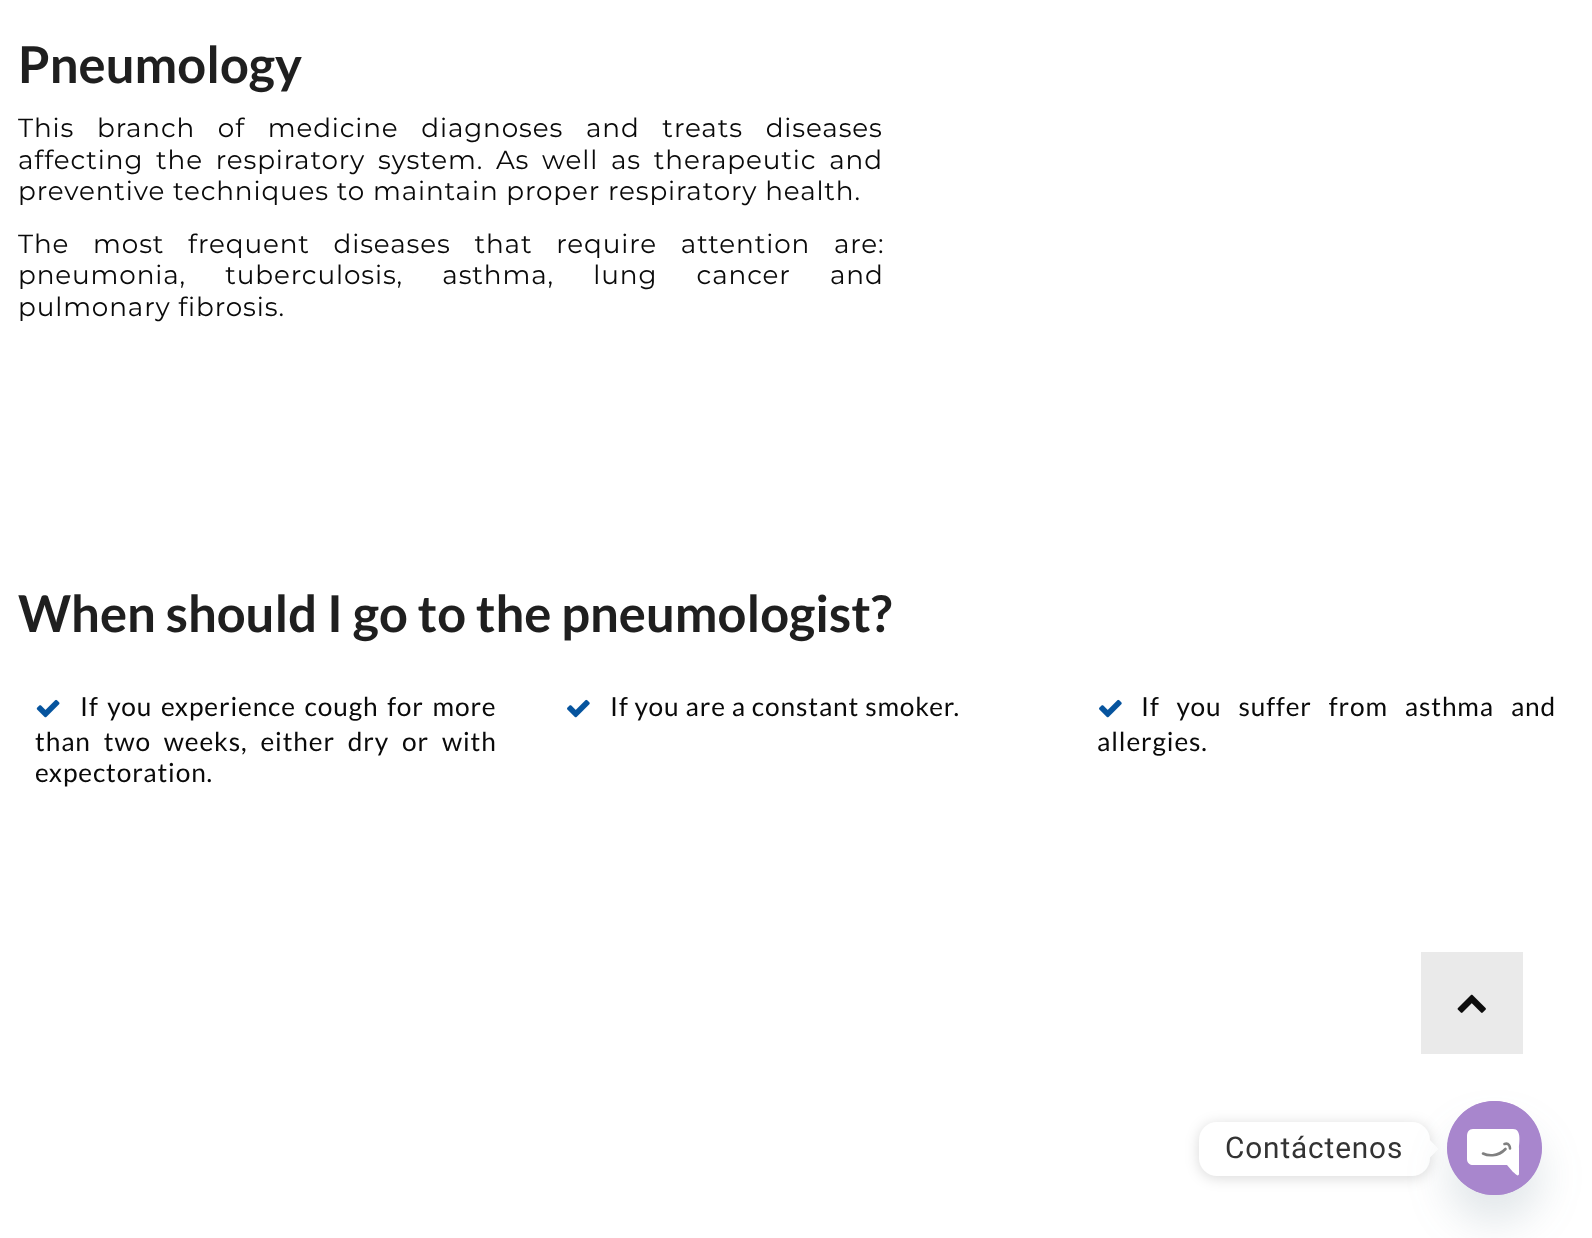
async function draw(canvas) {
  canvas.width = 1592
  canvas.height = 1238
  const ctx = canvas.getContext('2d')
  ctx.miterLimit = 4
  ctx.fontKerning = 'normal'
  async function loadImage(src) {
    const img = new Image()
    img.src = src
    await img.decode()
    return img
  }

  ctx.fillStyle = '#fff'
  ctx.fillRect(0, 0, 1592, 1238)
  ctx.font = 'bold 50.75px Lato'
  ctx.fillStyle = '#1f1f1f'
  ctx.fillText('Pneumology', 18, 83)
  ctx.letterSpacing = '0.88px'
  ctx.wordSpacing = '15px'
  ctx.font = '26.25px Montserrat'
  ctx.fillStyle = '#0a0a0a'
  ctx.fillText('This branch of medicine diagnoses and treats diseases', 18, 137)
  ctx.wordSpacing = '5px'
  ctx.fillText('affecting the respiratory system. As well as therapeutic and', 18, 169)
  ctx.wordSpacing = '0px'
  ctx.fillText('preventive techniques to maintain proper respiratory health.', 18, 200)
  ctx.wordSpacing = '16px'
  ctx.fillText('The most frequent diseases that require attention are:', 18, 253)
  ctx.wordSpacing = '31.5px'
  ctx.fillText('pneumonia, tuberculosis, asthma, lung cancer and', 18, 284)
  ctx.wordSpacing = '0px'
  ctx.fillText('pulmonary fibrosis.', 18, 316)
  ctx.letterSpacing = '0px'
  ctx.font = 'bold 50.75px Lato'
  ctx.fillStyle = '#1f1f1f'
  ctx.fillText('When should I go to the pneumologist?', 18, 632)
  ctx.drawImage(await loadImage('image0.png'), 36, 699, 24, 19)
  ctx.letterSpacing = '0.88px'
  ctx.wordSpacing = '2.75px'
  ctx.font = '26.25px Lato'
  ctx.fillStyle = '#0a0a0a'
  ctx.fillText('If you experience cough for more', 80, 716)
  ctx.wordSpacing = '7px'
  ctx.fillText('than two weeks, either dry or with', 35, 751)
  ctx.wordSpacing = '0px'
  ctx.fillText('expectoration.', 35, 782)
  ctx.drawImage(await loadImage('image1.png'), 567, 699, 23, 19)
  ctx.fillText('If you are a constant smoker.', 610, 716)
  ctx.drawImage(await loadImage('image1.png'), 1099, 699, 23, 19)
  ctx.wordSpacing = '11px'
  ctx.fillText('If you suffer from asthma and', 1141, 716)
  ctx.wordSpacing = '0px'
  ctx.fillText('allergies.', 1097, 751)
  ctx.fillStyle = '#eaeaea'
  ctx.fillRect(1421, 952, 102, 102)
  ctx.drawImage(await loadImage('image2.png'), 1457, 994, 29, 19)
  ctx.fillStyle = '#00000026'
  ctx.filter = 'blur(7px)'
  ctx.beginPath()
  ctx.roundRect(1199, 1124, 231, 54, 18)
  ctx.fill()
  ctx.filter = 'none'
  ctx.fillStyle = '#fff'
  ctx.beginPath()
  ctx.roundRect(1199, 1122, 231, 54, 18)
  ctx.fill()
  ctx.font = '29.75px Roboto'
  ctx.fillStyle = '#333'
  ctx.fillText('Contáctenos', 1225, 1158)
  ctx.fillStyle = '#fff'
  ctx.beginPath()
  ctx.moveTo(1430, 1157.5)
  ctx.lineTo(1430, 1140)
  ctx.lineTo(1438.5, 1149)
  ctx.closePath()
  ctx.fill()
  ctx.fillStyle = '#49687e29'
  ctx.filter = 'blur(21px)'
  ctx.beginPath()
  ctx.roundRect(1447, 1129, 95, 94, 47)
  ctx.fill()
  ctx.filter = 'none'
  ctx.fillStyle = '#a886cd'
  ctx.beginPath()
  ctx.roundRect(1447, 1101, 95, 94, 47)
  ctx.fill()
  ctx.beginPath()
  ctx.arc(1494.5, 1148, 47, 0, 2 * Math.PI)
  ctx.fill()
  ctx.fillStyle = '#fff'
  ctx.beginPath()
  ctx.moveTo(1513, 1129)
  ctx.lineTo(1473, 1129)
  ctx.bezierCurveTo(1469, 1129, 1467, 1132, 1467, 1136)
  ctx.lineTo(1467, 1159)
  ctx.bezierCurveTo(1467, 1163, 1470, 1165, 1473, 1165)
  ctx.lineTo(1507, 1165)
  ctx.lineTo(1513, 1172)
  ctx.bezierCurveTo(1514, 1172, 1518, 1178, 1519, 1174)
  ctx.lineTo(1519, 1148)
  ctx.bezierCurveTo(1519, 1143, 1522, 1129, 1513, 1129)
  ctx.closePath()
  ctx.fill()
  ctx.beginPath()
  ctx.moveTo(1483, 1153.5)
  ctx.bezierCurveTo(1487, 1155.5, 1497.5, 1157.5, 1505.5, 1149)
  ctx.moveTo(1510, 1148.5)
  ctx.bezierCurveTo(1510, 1146.5, 1509, 1142.5, 1504.5, 1144)
  ctx.strokeStyle = '#808080'
  ctx.lineWidth = 2.6
  ctx.lineCap = 'round'
  ctx.lineJoin = 'round'
  ctx.stroke()
}

draw(document.querySelector('canvas'))
